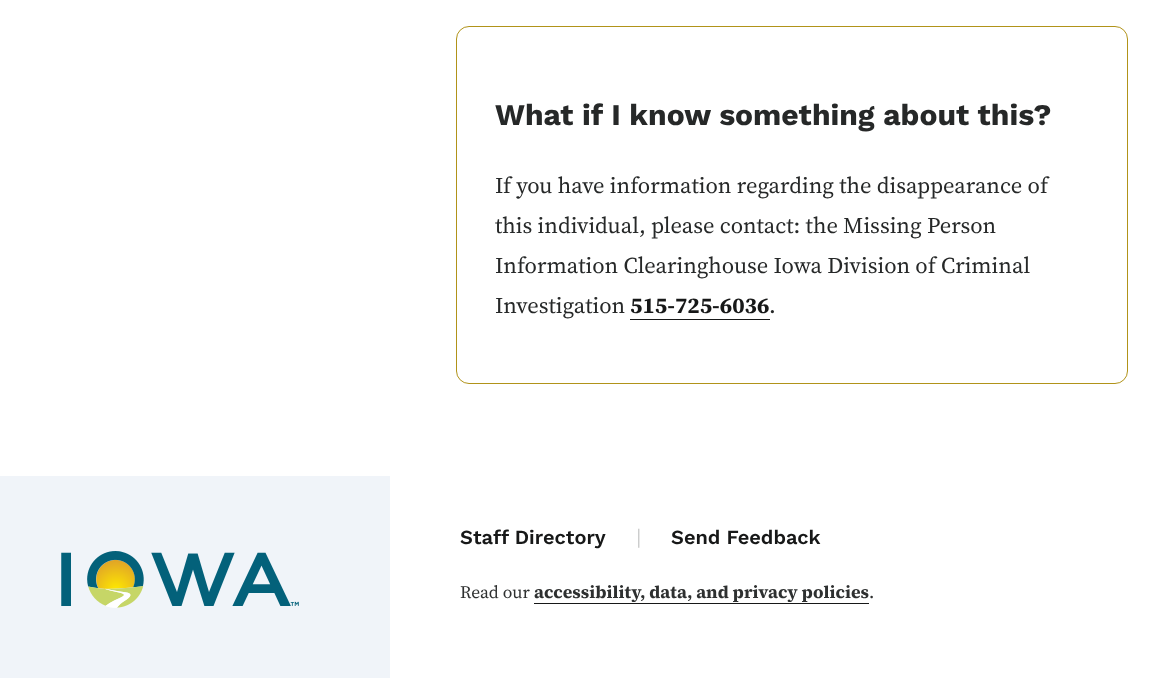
async function draw(canvas) {
  canvas.width = 1157
  canvas.height = 678
  const ctx = canvas.getContext('2d')
  ctx.miterLimit = 4
  ctx.fontKerning = 'normal'
  async function loadImage(src) {
    const img = new Image()
    img.src = src
    await img.decode()
    return img
  }

  ctx.fillStyle = '#fff'
  ctx.fillRect(0, 0, 1157, 678)
  ctx.beginPath()
  ctx.roundRect(456.5, 26.5, 671, 357, 12.5)
  ctx.strokeStyle = '#b19319'
  ctx.stroke()
  ctx.font = 'bold 30px Work Sans'
  ctx.fillStyle = '#262828'
  ctx.fillText('What if I know something about this?', 495, 125)
  ctx.font = '22.5px "Source Serif 4"'
  ctx.fillText('If you have information regarding the disappearance of', 495, 193)
  ctx.fillText('this individual, please contact: the Missing Person', 495, 233)
  ctx.fillText('Information Clearinghouse Iowa Division of Criminal', 495, 273)
  ctx.fillText('Investigation', 495, 313)
  ctx.font = 'bold 22.5px "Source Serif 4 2"'
  ctx.fillStyle = '#171818'
  ctx.fillText('515-725-6036', 630, 313)
  ctx.fillRect(630, 319, 140, 1)
  ctx.font = '22.5px "Source Serif 4"'
  ctx.fillStyle = '#262828'
  ctx.fillText('.', 769, 313)
  ctx.fillStyle = '#f0f4f9'
  ctx.fillRect(0, 476, 390, 202)
  ctx.drawImage(await loadImage('image0.png'), 61, 551, 238, 57)
  ctx.font = '600 20px Work Sans'
  ctx.fillStyle = '#171818'
  ctx.fillText('Staff Directory', 460, 544)
  ctx.font = '19px "Source Serif 4"'
  ctx.fillStyle = '#c1c2c2'
  ctx.fillText('|', 636, 543)
  ctx.font = '600 20px Work Sans'
  ctx.fillStyle = '#171818'
  ctx.fillText('Send Feedback', 671, 544)
  ctx.font = '17.5px "Source Serif 4"'
  ctx.fillStyle = '#2e3030'
  ctx.fillText('Read our', 460, 598)
  ctx.font = 'bold 17.5px "Source Serif 4"'
  ctx.fillText('accessibility, data, and privacy policies', 534, 598)
  ctx.fillStyle = '#171818'
  ctx.fillRect(534, 603, 335, 1)
  ctx.font = '17.5px "Source Serif 4"'
  ctx.fillStyle = '#2e3030'
  ctx.fillText('.', 869, 598)
}

draw(document.querySelector('canvas'))
